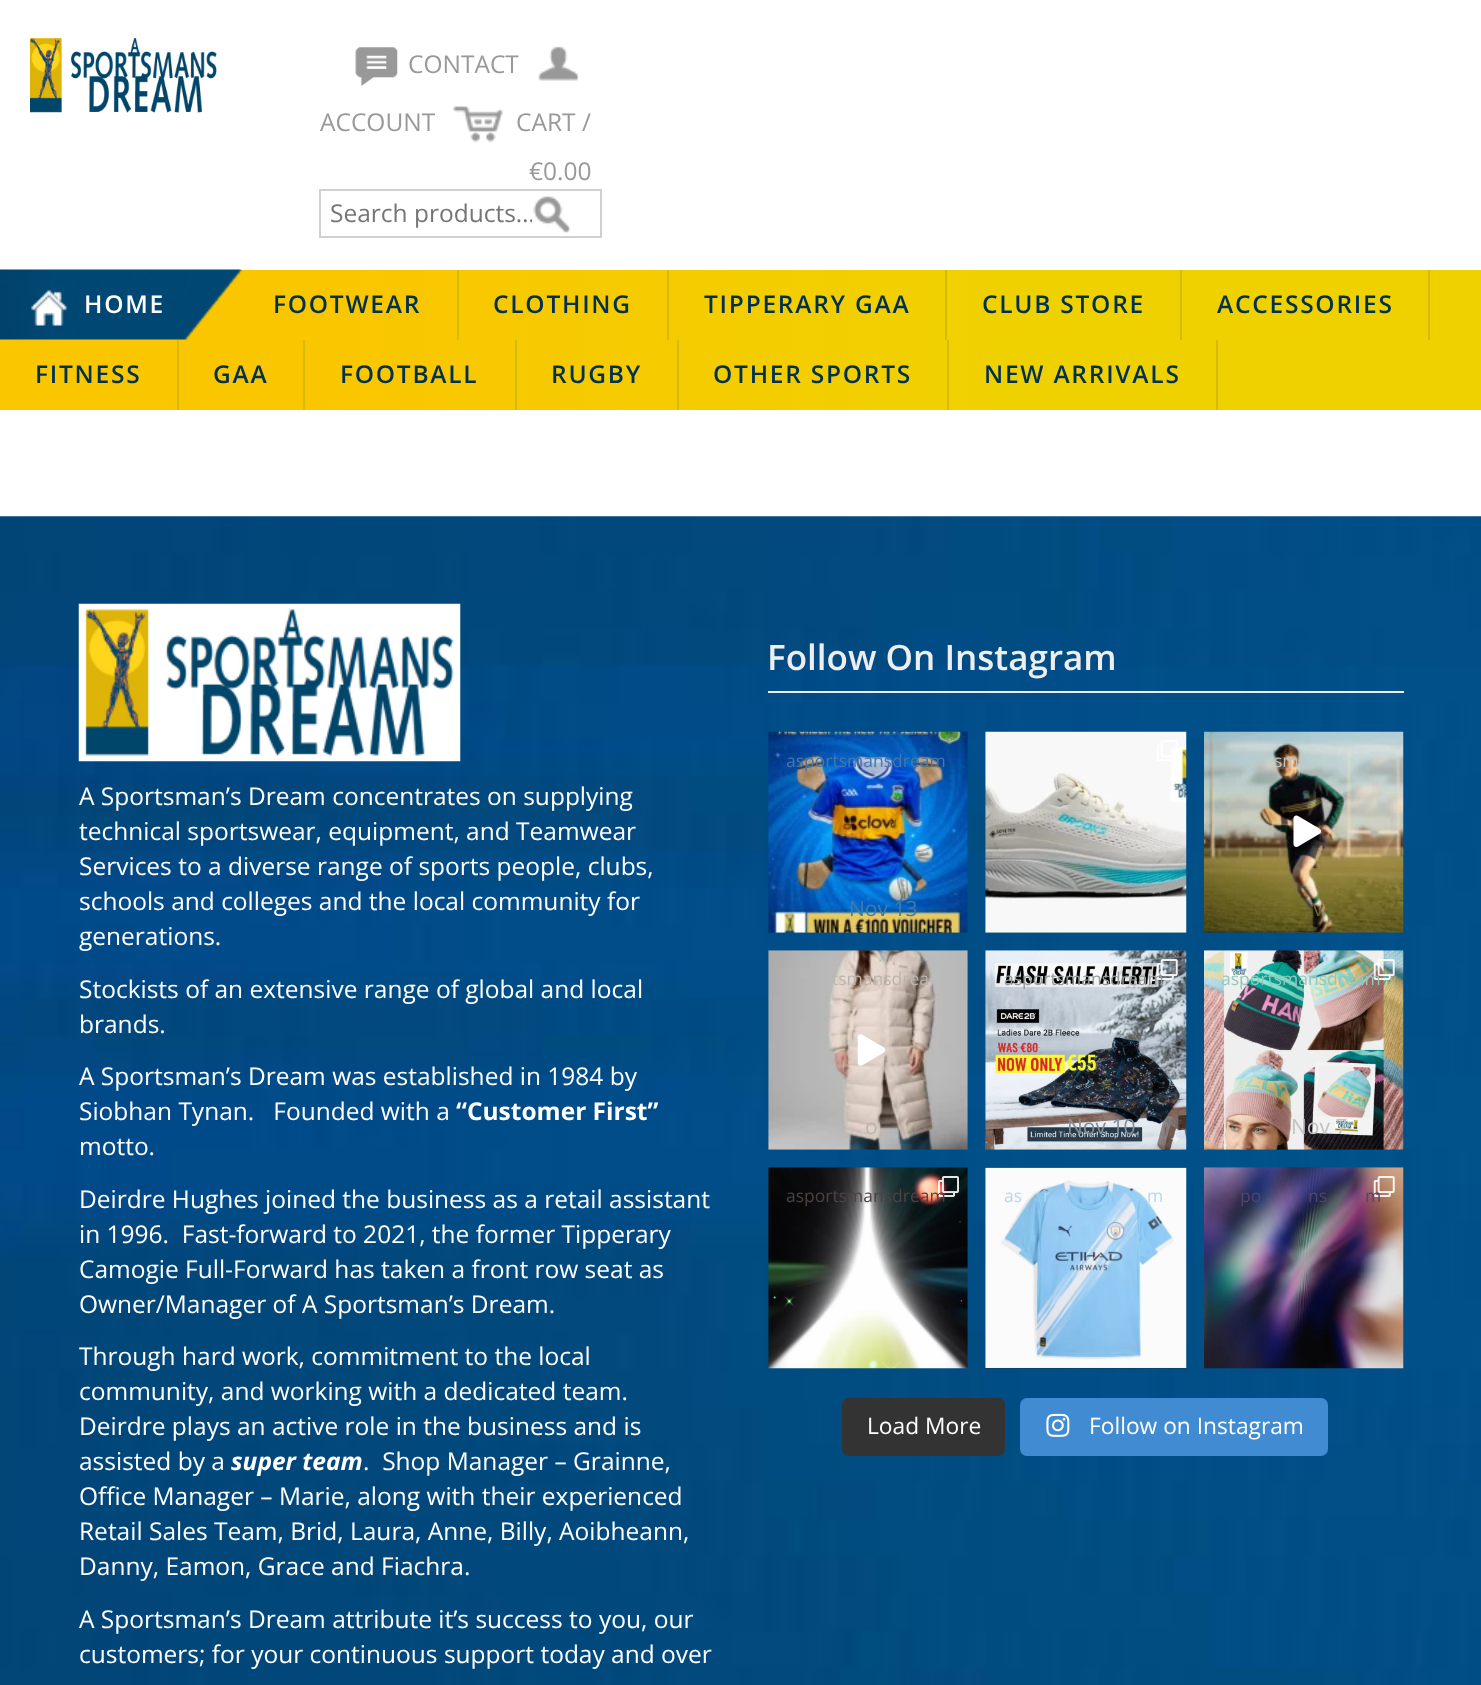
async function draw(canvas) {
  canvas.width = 1481
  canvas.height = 1685
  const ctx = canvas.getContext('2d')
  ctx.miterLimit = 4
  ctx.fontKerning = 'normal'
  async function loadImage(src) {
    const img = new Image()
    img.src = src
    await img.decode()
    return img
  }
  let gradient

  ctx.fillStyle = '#fff'
  ctx.fillRect(0, 0, 1481, 1685)
  ctx.drawImage(await loadImage('image0.png'), 30, 38, 187, 75)
  ctx.drawImage(await loadImage('image1.png'), 355, 47, 43, 39)
  ctx.font = '24.5px Open Sans'
  ctx.fillStyle = '#999'
  ctx.fillText('CONTACT', 408, 73)
  ctx.drawImage(await loadImage('image2.png'), 538, 46, 41, 35)
  ctx.fillText('ACCOUNT', 320, 131)
  ctx.drawImage(await loadImage('image3.png'), 453, 106, 50, 37)
  ctx.fillText('CART /', 516, 131)
  ctx.fillText('€0.00', 529, 180)
  ctx.strokeStyle = '#d0d0d0'
  ctx.lineWidth = 2
  ctx.strokeRect(320, 190, 281, 47)
  ctx.fillStyle = '#757575'
  ctx.fillText('Search products…', 330, 222)
  ctx.drawImage(await loadImage('image4.png'), 532, 196, 39, 37)
  gradient = ctx.createLinearGradient(0, 340, 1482, 339)
  gradient.addColorStop(0.23, '#fac600')
  gradient.addColorStop(0.67, '#f0d100')
  ctx.fillStyle = gradient
  ctx.fillRect(0, 270, 1481, 140)
  ctx.drawImage(await loadImage('image5.png'), 0, 269, 242, 71)
  ctx.drawImage(await loadImage('image6.png'), 31, 290, 36, 36)
  ctx.letterSpacing = '1.75px'
  ctx.font = '600 24.5px Open Sans'
  ctx.fillStyle = '#fff'
  ctx.fillText('HOME', 84, 313)
  ctx.fillStyle = '#d6b90a'
  ctx.fillRect(457, 270, 2, 70)
  ctx.fillStyle = '#003150'
  ctx.fillText('FOOTWEAR', 273, 313)
  ctx.fillStyle = '#d6b90a'
  ctx.fillRect(667, 270, 2, 70)
  ctx.fillStyle = '#003150'
  ctx.fillText('CLOTHING', 493, 313)
  ctx.fillStyle = '#d6b90a'
  ctx.fillRect(945, 270, 2, 70)
  ctx.fillStyle = '#003150'
  ctx.fillText('TIPPERARY GAA', 704, 313)
  ctx.fillStyle = '#d6b90a'
  ctx.fillRect(1180, 270, 2, 70)
  ctx.fillStyle = '#003150'
  ctx.fillText('CLUB STORE', 982, 313)
  ctx.fillStyle = '#d6b90a'
  ctx.fillRect(1428, 270, 2, 70)
  ctx.fillStyle = '#003150'
  ctx.fillText('ACCESSORIES', 1217, 313)
  ctx.fillStyle = '#d6b90a'
  ctx.fillRect(177, 340, 2, 70)
  ctx.fillStyle = '#003150'
  ctx.fillText('FITNESS', 35, 383)
  ctx.fillStyle = '#d6b90a'
  ctx.fillRect(303, 340, 2, 70)
  ctx.fillStyle = '#003150'
  ctx.fillText('GAA', 213, 383)
  ctx.fillStyle = '#d6b90a'
  ctx.fillRect(515, 340, 2, 70)
  ctx.fillStyle = '#003150'
  ctx.fillText('FOOTBALL', 340, 383)
  ctx.fillStyle = '#d6b90a'
  ctx.fillRect(677, 340, 2, 70)
  ctx.fillStyle = '#003150'
  ctx.fillText('RUGBY', 551, 383)
  ctx.fillStyle = '#d6b90a'
  ctx.fillRect(947, 340, 2, 70)
  ctx.fillStyle = '#003150'
  ctx.fillText('OTHER SPORTS', 713, 383)
  ctx.fillStyle = '#d6b90a'
  ctx.fillRect(1216, 340, 2, 70)
  ctx.fillStyle = '#003150'
  ctx.fillText('NEW ARRIVALS', 984, 383)
  ctx.drawImage(await loadImage('image7.png'), 0, 516, 1481, 1169)
  ctx.drawImage(await loadImage('image8.png'), 78, 603, 383, 159)
  ctx.letterSpacing = '0px'
  ctx.font = '24.5px Open Sans'
  ctx.fillStyle = '#fff'
  ctx.fillText('A Sportsman’s Dream concentrates on supplying', 79, 805)
  ctx.fillText('technical sportswear, equipment, and Teamwear', 79, 840)
  ctx.fillText('Services to a diverse range of sports people, clubs,', 79, 875)
  ctx.fillText('schools and colleges and the local community for', 79, 910)
  ctx.fillText('generations.', 79, 945)
  ctx.fillText('Stockists of an extensive range of global and local', 79, 998)
  ctx.fillText('brands.', 79, 1033)
  ctx.fillText('A Sportsman’s Dream was established in 1984 by', 79, 1085)
  ctx.fillText('Siobhan Tynan.   Founded with a', 79, 1120)
  ctx.font = 'bold 24.5px Open Sans'
  ctx.fillText('“Customer First”', 456, 1120)
  ctx.font = '24.5px Open Sans'
  ctx.fillText('motto.', 79, 1155)
  ctx.fillText('Deirdre Hughes joined the business as a retail assistant', 79, 1208)
  ctx.fillText('in 1996.  Fast-forward to 2021, the former Tipperary', 79, 1243)
  ctx.fillText('Camogie Full-Forward has taken a front row seat as', 79, 1278)
  ctx.fillText('Owner/Manager of A Sportsman’s Dream.', 79, 1313)
  ctx.fillText('Through hard work, commitment to the local', 79, 1365)
  ctx.fillText('community, and working with a dedicated team.', 79, 1400)
  ctx.fillText('Deirdre plays an active role in the business and is', 79, 1435)
  ctx.fillText('assisted by a', 79, 1470)
  ctx.font = 'italic bold 24.5px Open Sans'
  ctx.fillText('super team', 231, 1470)
  ctx.font = '24.5px Open Sans'
  ctx.fillText('.  Shop Manager – Grainne,', 363, 1470)
  ctx.fillText('Office Manager – Marie, along with their experienced', 79, 1505)
  ctx.fillText('Retail Sales Team, Brid, Laura, Anne, Billy, Aoibheann,', 79, 1540)
  ctx.fillText('Danny, Eamon, Grace and Fiachra.', 79, 1575)
  ctx.fillText('A Sportsman’s Dream attribute it’s success to you, our', 79, 1628)
  ctx.fillText('customers; for your continuous support today and over', 79, 1663)
  ctx.fillStyle = '#eee'
  ctx.fillRect(768, 691, 636, 2)
  ctx.font = '600 35px Open Sans'
  ctx.fillText('Follow On Instagram', 767, 670)
  ctx.drawImage(await loadImage('image9.png'), 768, 731, 200, 202)
  ctx.font = '17.5px Open Sans'
  ctx.fillStyle = '#4876ac'
  ctx.fillText('asportsmansdream', 786, 767)
  ctx.font = '21px Open Sans'
  ctx.fillStyle = '#3e7ca9'
  ctx.fillText('Nov 13', 849, 916)
  ctx.drawImage(await loadImage('image10.png'), 985, 731, 202, 202)
  ctx.drawImage(await loadImage('image11.png'), 1157, 740, 21, 21)
  ctx.drawImage(await loadImage('image12.png'), 1204, 731, 200, 202)
  ctx.font = '17.5px Open Sans'
  ctx.fillStyle = '#b9c2bd'
  ctx.fillText('sm', 1274, 767)
  ctx.font = '21px Open Sans'
  ctx.fillStyle = '#6b632a'
  ctx.fillText('v', 1313, 916)
  ctx.drawImage(await loadImage('image13.png'), 1293, 815, 28, 32)
  ctx.drawImage(await loadImage('image14.png'), 768, 950, 200, 200)
  ctx.font = '17.5px Open Sans'
  ctx.fillStyle = '#bdb4ae'
  ctx.fillText('tsmansdrea', 832, 985)
  ctx.font = '21px Open Sans'
  ctx.fillText('o', 865, 1134)
  ctx.drawImage(await loadImage('image15.png'), 857, 1034, 29, 32)
  ctx.drawImage(await loadImage('image16.png'), 985, 950, 202, 200)
  ctx.drawImage(await loadImage('image17.png'), 1156, 959, 22, 21)
  ctx.font = '17.5px Open Sans'
  ctx.fillStyle = '#999'
  ctx.fillText('asportsmansdream', 1004, 985)
  ctx.font = '21px Open Sans'
  ctx.fillStyle = '#858d97'
  ctx.fillText('Nov 10', 1067, 1134)
  ctx.drawImage(await loadImage('image18.png'), 1204, 950, 200, 200)
  ctx.drawImage(await loadImage('image19.png'), 1373, 959, 22, 21)
  ctx.font = '17.5px Open Sans'
  ctx.fillStyle = '#95c7bb'
  ctx.fillText('asportsmansdream', 1221, 985)
  ctx.font = '21px Open Sans'
  ctx.fillStyle = '#c1c2c1'
  ctx.fillText('Nov 7', 1291, 1134)
  ctx.drawImage(await loadImage('image20.png'), 768, 1167, 200, 202)
  ctx.drawImage(await loadImage('image21.png'), 938, 1176, 21, 21)
  ctx.font = '17.5px Open Sans'
  ctx.fillStyle = '#4c4341'
  ctx.fillText('asportsmansdream', 786, 1202)
  ctx.drawImage(await loadImage('image22.png'), 985, 1167, 202, 202)
  ctx.fillStyle = '#b4d8f3'
  ctx.fillText('as', 1004, 1202)
  ctx.fillText('r', 1043, 1202)
  ctx.fillText('m', 1147, 1202)
  ctx.drawImage(await loadImage('image23.png'), 1204, 1167, 200, 202)
  ctx.drawImage(await loadImage('image24.png'), 1373, 1176, 22, 21)
  ctx.fillStyle = '#53456c'
  ctx.fillText('po', 1240, 1202)
  ctx.fillText('ns', 1308, 1202)
  ctx.fillText('m', 1365, 1202)
  ctx.fillStyle = '#333'
  ctx.beginPath()
  ctx.roundRect(842, 1398, 163, 58, 7)
  ctx.fill()
  ctx.font = '22.75px Open Sans'
  ctx.fillStyle = '#fff'
  ctx.fillText('Load More', 867, 1434)
  ctx.fillStyle = '#408bd1'
  ctx.beginPath()
  ctx.roundRect(1020, 1398, 308, 58, 7)
  ctx.fill()
  ctx.drawImage(await loadImage('image25.png'), 1046, 1413, 24, 24)
  ctx.fillStyle = '#fff'
  ctx.fillText('Follow on Instagram', 1089, 1434)
}

draw(document.querySelector('canvas'))
